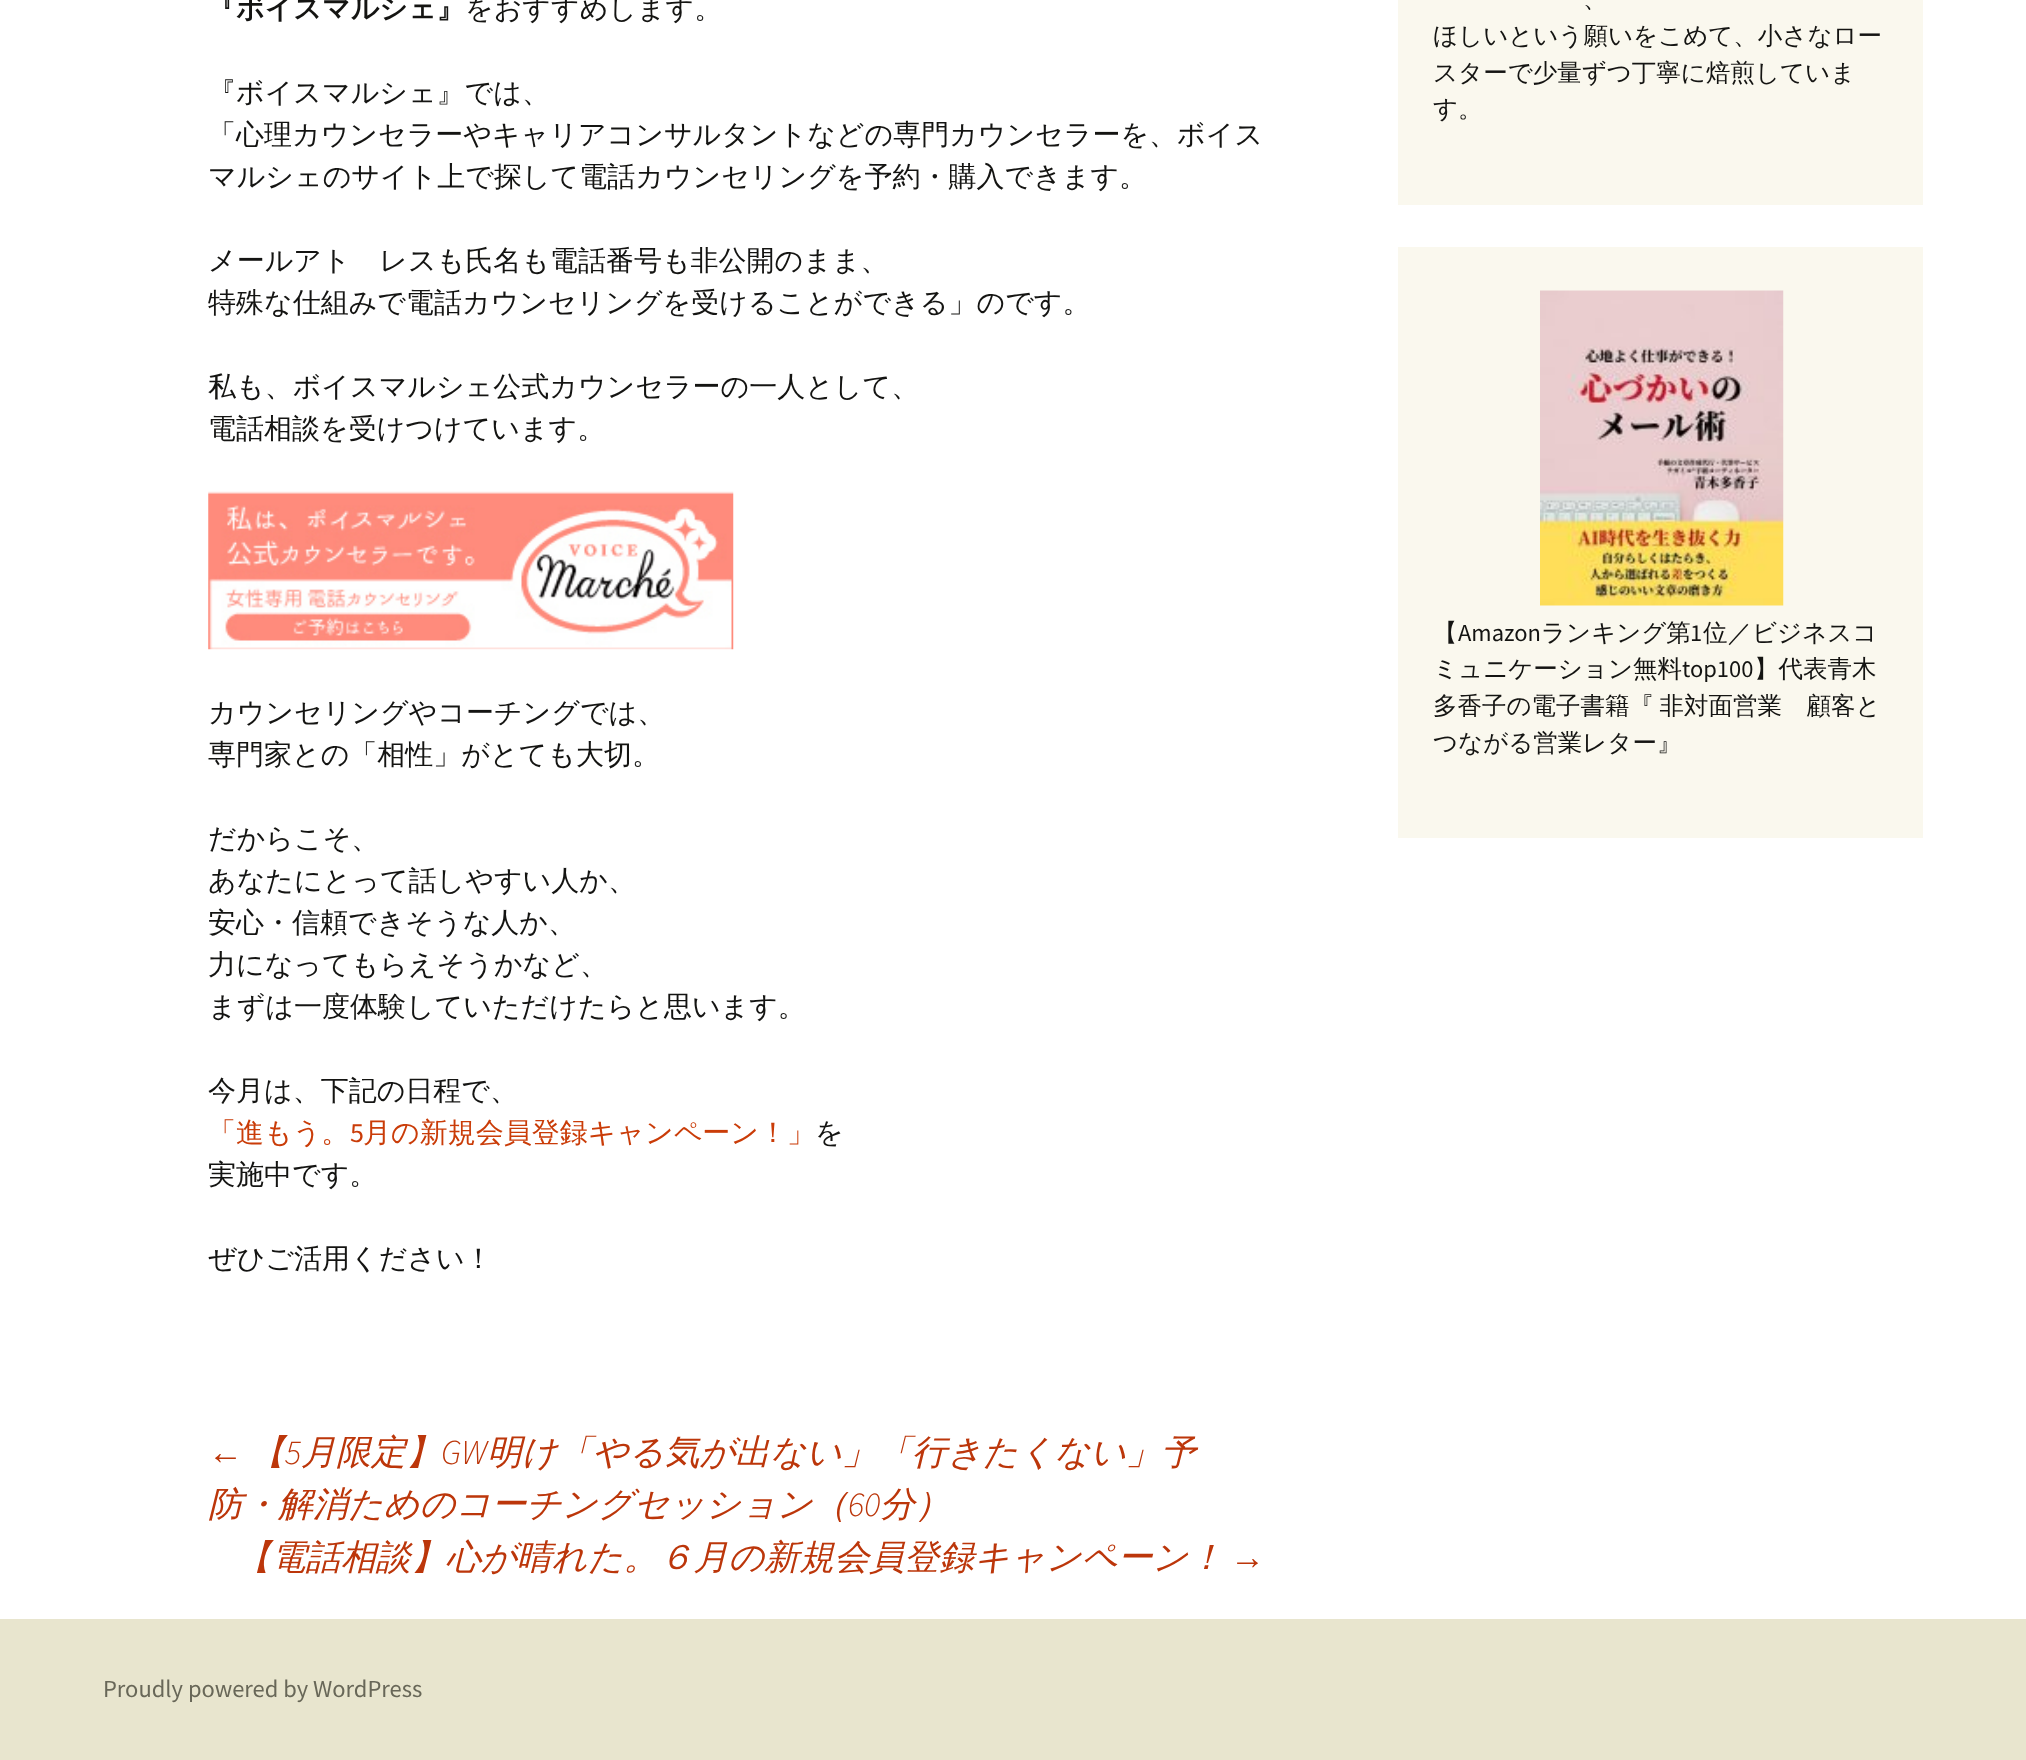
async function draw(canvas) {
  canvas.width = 2026
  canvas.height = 1760
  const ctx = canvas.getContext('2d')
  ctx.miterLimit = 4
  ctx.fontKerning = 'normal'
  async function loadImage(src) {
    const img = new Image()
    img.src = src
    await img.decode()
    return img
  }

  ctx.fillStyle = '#fff'
  ctx.fillRect(0, 0, 2026, 1760)
  ctx.font = 'bold 28px WenQuanYi Zen Hei'
  ctx.fillStyle = '#141412'
  ctx.fillText('『ボイスマルシェ』', 208, 18)
  ctx.font = '500 28px WenQuanYi Zen Hei'
  ctx.fillText('をおすすめします。', 465, 18)
  ctx.fillText('『ボイスマルシェ』では、', 208, 102)
  ctx.fillText('「心理カウンセラーやキャリアコンサルタントなどの専門カウンセラーを、ボイス', 208, 144)
  ctx.fillText('マルシェのサイト上で探して電話カウンセリングを予約・購入できます。', 208, 186)
  ctx.fillText('メールアドレスも氏名も電話番号も非公開のまま、', 208, 270)
  ctx.fillText('特殊な仕組みで電話カウンセリングを受けることができる」のです。', 208, 312)
  ctx.fillText('私も、ボイスマルシェ公式カウンセラーの一人として、', 208, 396)
  ctx.fillText('電話相談を受けつけています。', 208, 438)
  ctx.drawImage(await loadImage('image0.png'), 208, 491, 526, 159)
  ctx.fillText('カウンセリングやコーチングでは、', 208, 722)
  ctx.fillText('専門家との「相性」がとても大切。', 208, 764)
  ctx.fillText('だからこそ、', 208, 848)
  ctx.fillText('あなたにとって話しやすい人か、', 208, 890)
  ctx.fillText('安心・信頼できそうな人か、', 208, 932)
  ctx.fillText('力になってもらえそうかなど、', 208, 974)
  ctx.fillText('まずは一度体験していただけたらと思います。', 208, 1016)
  ctx.fillText('今月は、下記の日程で、', 208, 1100)
  ctx.fillStyle = '#ca3c08'
  ctx.fillText('「進もう。', 208, 1142)
  ctx.font = '28px Source Sans Pro'
  ctx.fillText('5', 350, 1142)
  ctx.font = '500 28px WenQuanYi Zen Hei'
  ctx.fillText('月の新規会員登録キャンペーン！」', 363, 1142)
  ctx.fillStyle = '#141412'
  ctx.fillText('を', 815, 1142)
  ctx.fillText('実施中です。', 208, 1184)
  ctx.fillText('ぜひご活用ください！', 208, 1268)
  ctx.font = 'italic 35px Liberation Sans'
  ctx.fillStyle = '#bc360a'
  ctx.fillText('←', 208, 1464)
  ctx.font = 'italic 500 35px WenQuanYi Zen Hei'
  ctx.fillText('【', 250, 1464)
  ctx.font = 'italic 300 35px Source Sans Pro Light'
  ctx.fillText('5', 285, 1464)
  ctx.font = 'italic 500 35px WenQuanYi Zen Hei'
  ctx.fillText('月限定】', 301, 1464)
  ctx.font = 'italic 300 35px Source Sans Pro Light'
  ctx.fillText('GW', 441, 1464)
  ctx.font = 'italic 500 35px WenQuanYi Zen Hei'
  ctx.fillText('明け「やる気が出ない」「行きたくない」予', 487, 1464)
  ctx.fillText('防・解消ためのコーチングセッション（', 208, 1516)
  ctx.font = 'italic 300 35px Source Sans Pro Light'
  ctx.fillText('60', 848, 1516)
  ctx.font = 'italic 500 35px WenQuanYi Zen Hei'
  ctx.fillText('分）', 880, 1516)
  ctx.fillText('【電話相談】心が晴れた。６月の新規会員登録キャンペーン！', 236, 1569)
  ctx.font = 'italic 35px Liberation Sans'
  ctx.fillText('→', 1230, 1569)
  ctx.fillStyle = '#faf8ee'
  ctx.fillRect(1398, 0, 525, 205)
  ctx.font = '500 24.5px WenQuanYi Zen Hei'
  ctx.fillStyle = '#141412'
  ctx.fillText('、', 1583, 7)
  ctx.fillText('ほしいという願いをこめて、小さなロー', 1433, 44)
  ctx.fillText('スターで少量ずつ丁寧に焙煎していま', 1433, 81)
  ctx.fillText('す。', 1433, 117)
  ctx.fillStyle = '#faf8ee'
  ctx.fillRect(1398, 247, 525, 591)
  ctx.drawImage(await loadImage('image1.png'), 1540, 290, 244, 316)
  ctx.fillStyle = '#141412'
  ctx.fillText('【', 1433, 641)
  ctx.font = '24.5px Source Sans Pro'
  ctx.fillText('Amazon', 1458, 641)
  ctx.font = '500 24.5px WenQuanYi Zen Hei'
  ctx.fillText('ランキング第', 1541, 641)
  ctx.font = '24.5px Source Sans Pro'
  ctx.fillText('1', 1690, 641)
  ctx.font = '500 24.5px WenQuanYi Zen Hei'
  ctx.fillText('位／ビジネスコ', 1703, 641)
  ctx.fillText('ミュニケーション無料', 1433, 677)
  ctx.font = '24.5px Source Sans Pro'
  ctx.fillText('top100', 1682, 677)
  ctx.font = '500 24.5px WenQuanYi Zen Hei'
  ctx.fillText('】代表青木', 1754, 677)
  ctx.wordSpacing = '-2px'
  ctx.fillText('多香子の電子書籍『 非対面営業　顧客と', 1433, 714)
  ctx.wordSpacing = '0px'
  ctx.fillText('つながる営業レター』', 1433, 751)
  ctx.fillStyle = '#e8e5ce'
  ctx.fillRect(0, 1619, 2026, 141)
  ctx.font = '24.5px Source Sans Pro'
  ctx.fillStyle = '#686758'
  ctx.fillText('Proudly powered by WordPress', 103, 1697)
}

draw(document.querySelector('canvas'))
